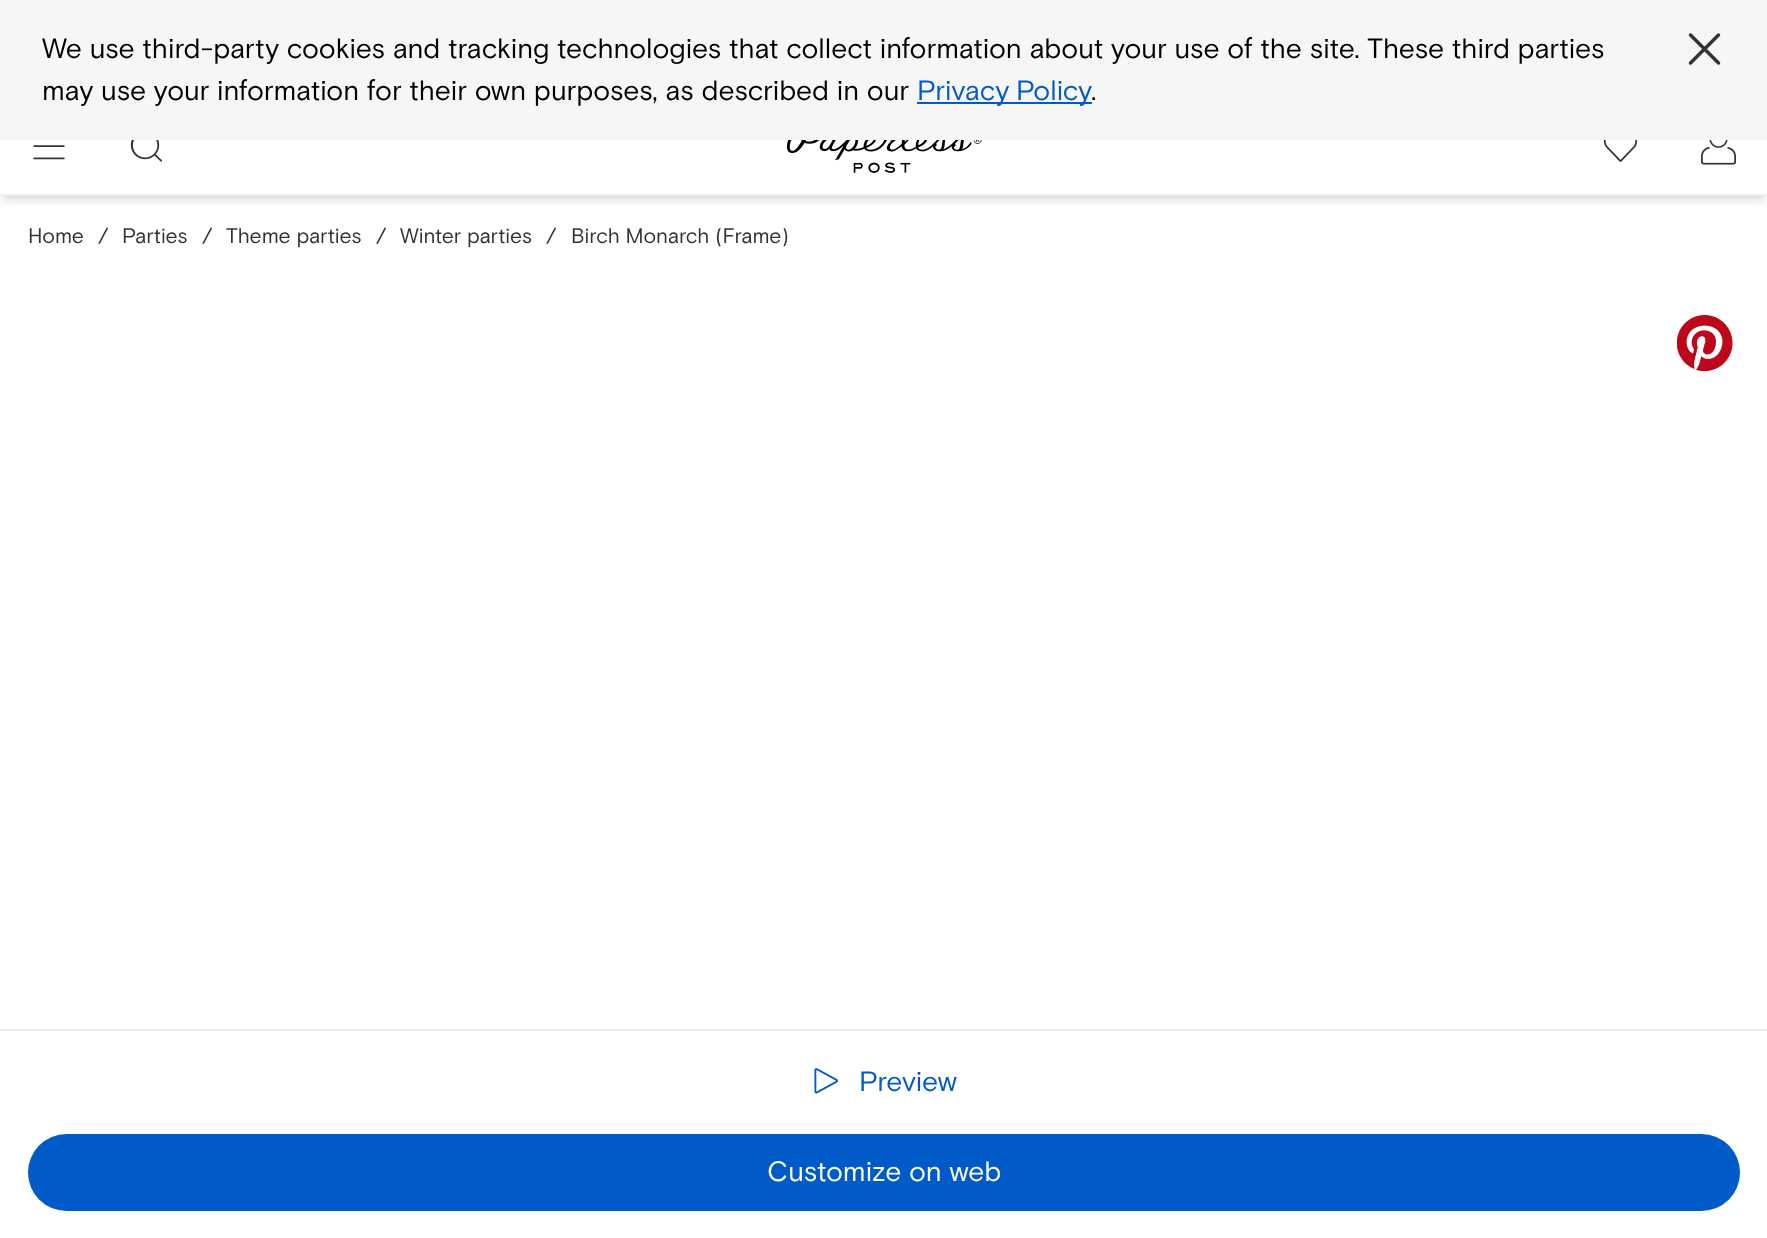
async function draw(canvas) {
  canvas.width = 1767
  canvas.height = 1238
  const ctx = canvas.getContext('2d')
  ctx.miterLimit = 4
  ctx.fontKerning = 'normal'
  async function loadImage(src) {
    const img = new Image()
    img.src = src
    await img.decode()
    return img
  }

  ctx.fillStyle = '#fff'
  ctx.fillRect(0, 0, 1767, 1238)
  ctx.save()
  ctx.beginPath()
  ctx.rect(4, 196, 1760, 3)
  ctx.clip()
  ctx.fillStyle = '#0000001a'
  ctx.filter = 'blur(3.5px)'
  ctx.beginPath()
  ctx.rect(4, 105, 1760, 91)
  ctx.fill()
  ctx.filter = 'none'
  ctx.restore()
  ctx.save()
  ctx.beginPath()
  ctx.rect(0, 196, 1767, 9)
  ctx.clip()
  ctx.fillStyle = '#0000001a'
  ctx.filter = 'blur(5px)'
  ctx.beginPath()
  ctx.rect(2, 107, 1764, 94)
  ctx.fill()
  ctx.filter = 'none'
  ctx.restore()
  ctx.fillStyle = '#f6f6f6'
  ctx.fillRect(0, 0, 1767, 140)
  ctx.font = '28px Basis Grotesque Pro'
  ctx.fillStyle = '#000'
  ctx.fillText('We use third-party cookies and tracking technologies that collect information about your use of the site. These third parties', 42, 58)
  ctx.fillText('may use your information for their own purposes, as described in our', 42, 100)
  ctx.fillStyle = '#005ac8'
  ctx.fillRect(917, 102, 175, 2)
  ctx.wordSpacing = '-1px'
  ctx.fillText('Privacy Policy', 917, 100)
  ctx.wordSpacing = '0px'
  ctx.fillStyle = '#000'
  ctx.fillText('.', 1091, 100)
  ctx.beginPath()
  ctx.moveTo(1690.5, 63)
  ctx.lineTo(1718.5, 35)
  ctx.moveTo(1690.5, 35)
  ctx.lineTo(1718.5, 63)
  ctx.strokeStyle = '#333'
  ctx.lineWidth = 3.5
  ctx.lineCap = 'round'
  ctx.lineJoin = 'round'
  ctx.stroke()
  ctx.fillStyle = '#eee'
  ctx.fillRect(0, 194, 1767, 2)
  ctx.drawImage(await loadImage('image0.png'), 33, 145, 32, 15)
  ctx.drawImage(await loadImage('image1.png'), 130, 140, 32, 22)
  ctx.drawImage(await loadImage('image2.png'), 786, 140, 196, 33)
  ctx.drawImage(await loadImage('image3.png'), 1603, 140, 35, 22)
  ctx.drawImage(await loadImage('image4.png'), 1701, 140, 35, 25)
  ctx.font = '21px Basis Grotesque Pro'
  ctx.fillStyle = '#333'
  ctx.fillText('Home', 28, 243)
  ctx.fillText('/', 98, 243)
  ctx.fillText('Parties', 122, 243)
  ctx.fillText('/', 202, 243)
  ctx.fillText('Theme parties', 226, 243)
  ctx.fillText('/', 376, 243)
  ctx.fillText('Winter parties', 400, 243)
  ctx.fillText('/', 546, 243)
  ctx.fillText('Birch Monarch (Frame)', 571, 243)
  ctx.drawImage(await loadImage('image5.png'), 1677, 315, 56, 56)
  ctx.fillStyle = '#eee'
  ctx.fillRect(0, 1029, 1767, 2)
  ctx.drawImage(await loadImage('image6.png'), 814, 1068, 25, 26)
  ctx.font = '28px Basis Grotesque Pro'
  ctx.fillStyle = '#005ac8'
  ctx.fillText('Preview', 859, 1091)
  ctx.beginPath()
  ctx.roundRect(28, 1134, 1712, 77, 38.5)
  ctx.fill()
  ctx.fillStyle = '#fff'
  ctx.fillText('Customize on web', 767, 1181)
}

draw(document.querySelector('canvas'))
